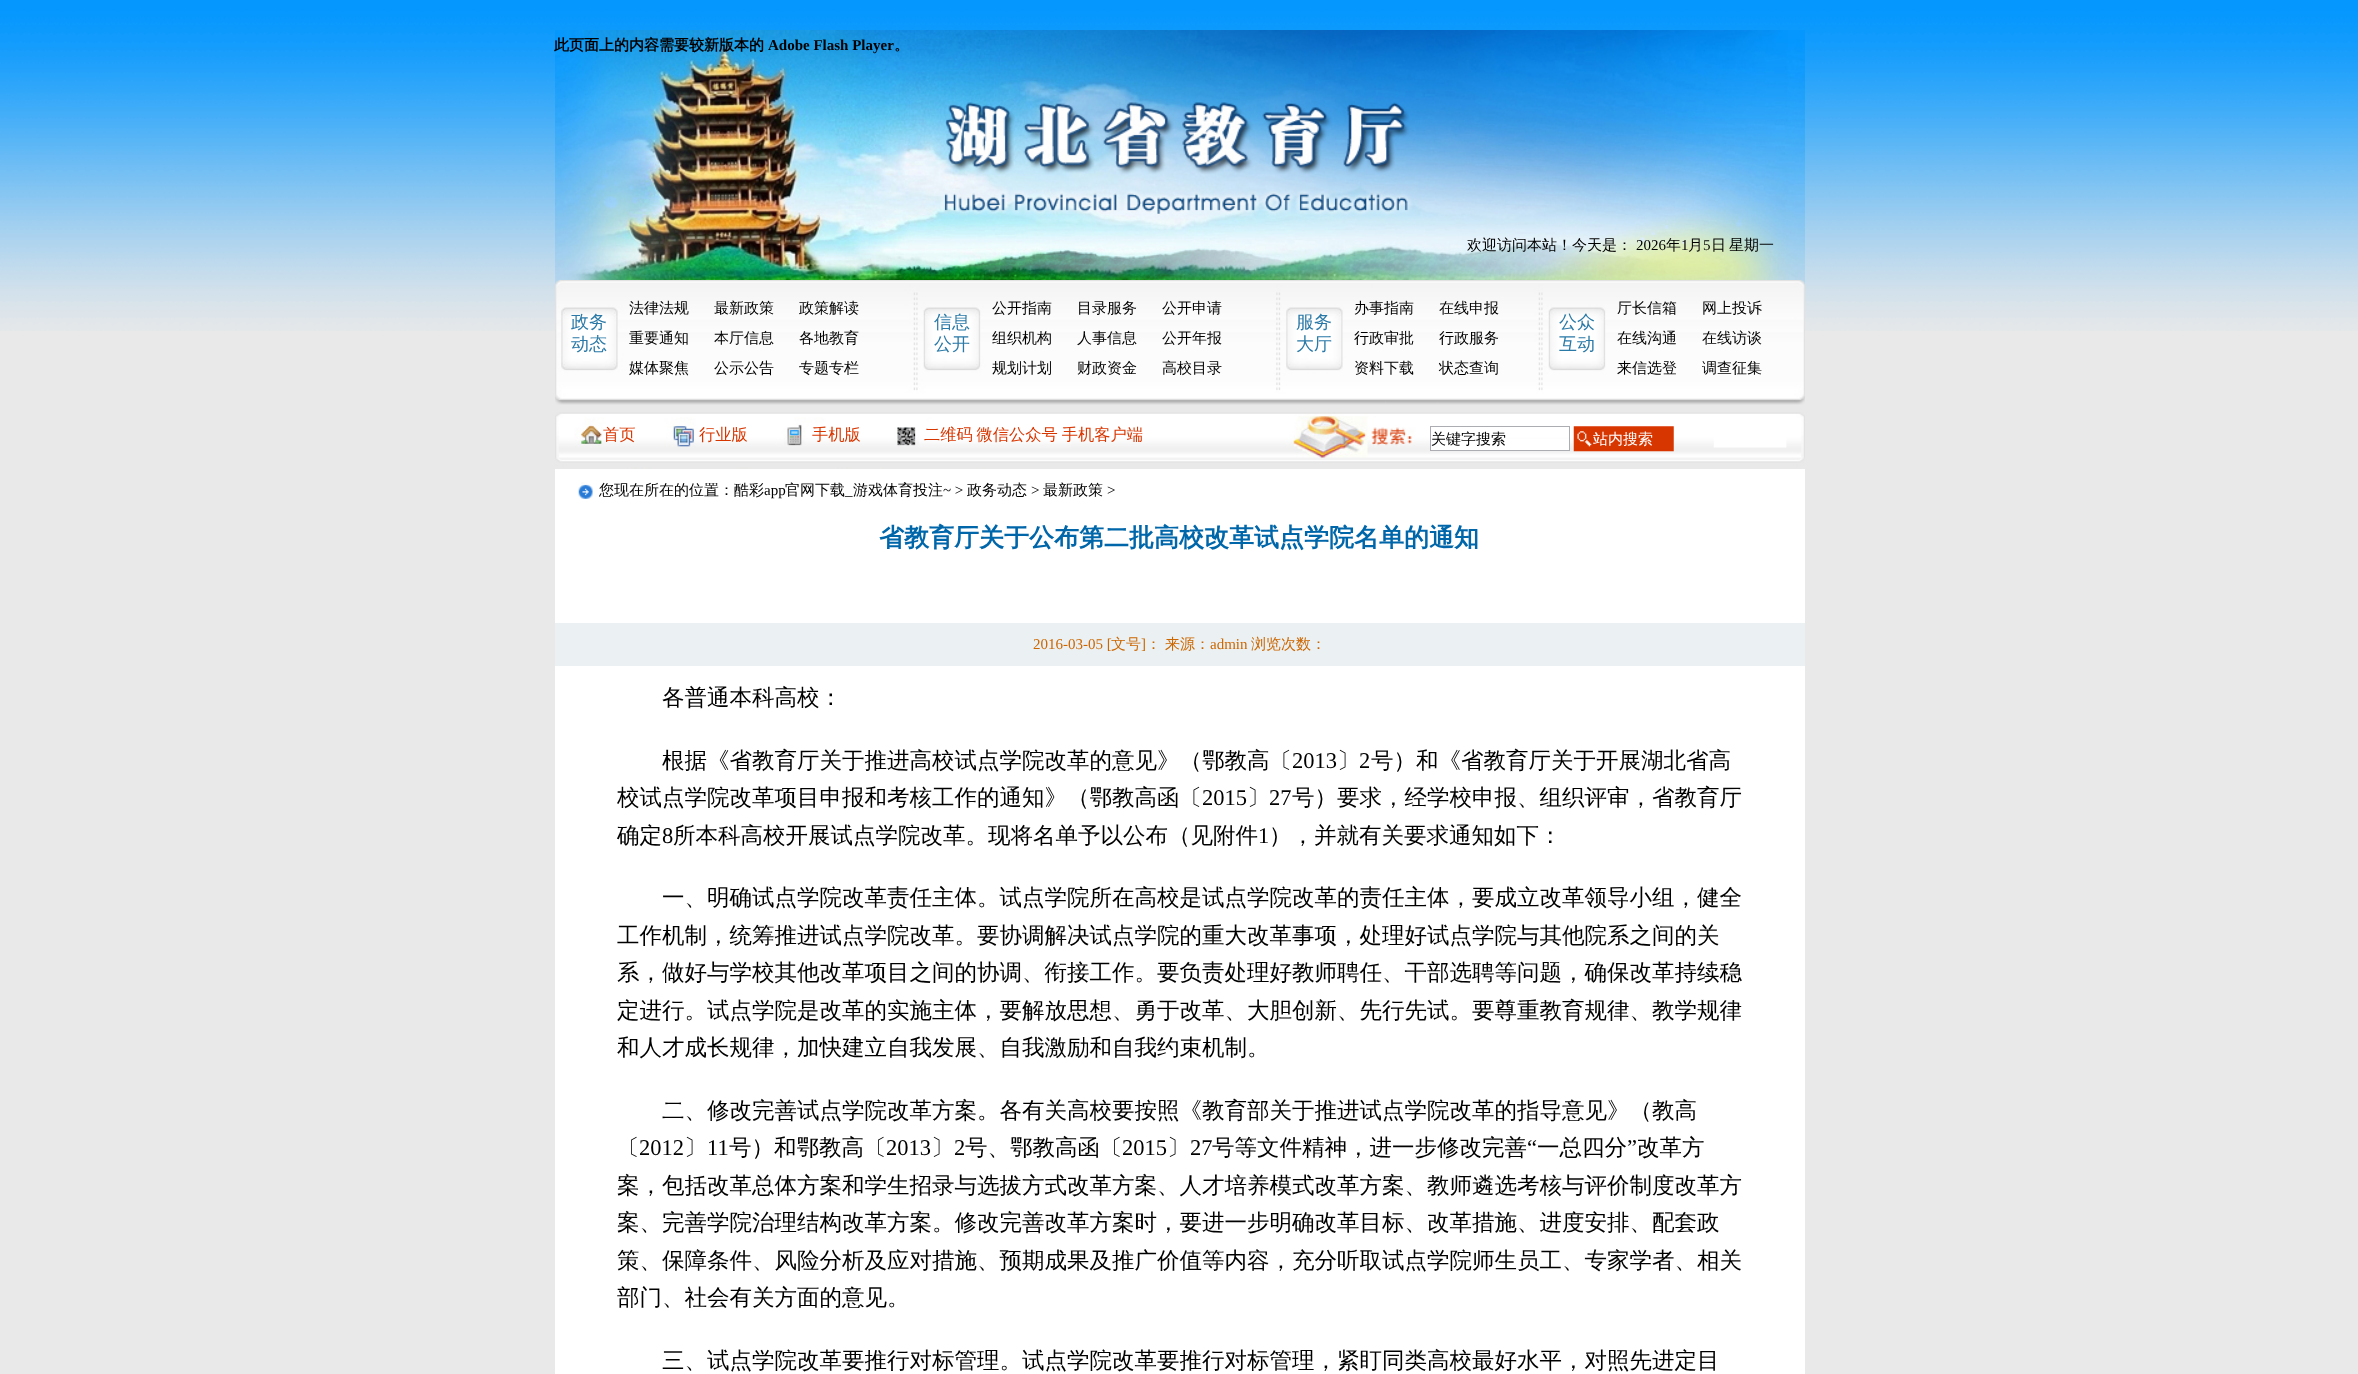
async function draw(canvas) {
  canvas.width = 2358
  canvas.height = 1374
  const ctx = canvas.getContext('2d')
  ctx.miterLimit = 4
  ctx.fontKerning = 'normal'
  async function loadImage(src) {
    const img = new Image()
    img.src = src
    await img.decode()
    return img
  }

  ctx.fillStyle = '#e9e9e9'
  ctx.fillRect(0, 0, 2358, 1374)
  ctx.drawImage(await loadImage('image0.png'), 0, 0, 2358, 331)
  ctx.drawImage(await loadImage('image1.png'), 555, 30, 1250, 250)
  ctx.font = 'bold 15px WenQuanYi Zen Hei'
  ctx.fillStyle = '#000'
  ctx.fillText('此页面上的内容需要较新版本的', 554, 50)
  ctx.font = 'bold 15px Liberation Serif'
  ctx.fillText('Adobe Flash Player', 768, 50)
  ctx.font = 'bold 15px WenQuanYi Zen Hei'
  ctx.fillText('。', 894, 50)
  ctx.font = '500 15px WenQuanYi Zen Hei'
  ctx.fillText('欢迎访问本站！今天是：', 1467, 250)
  ctx.font = '15px Liberation Serif'
  ctx.fillText('2026', 1636, 250)
  ctx.font = '500 15px WenQuanYi Zen Hei'
  ctx.fillText('年', 1666, 250)
  ctx.font = '15px Liberation Serif'
  ctx.fillText('1', 1681, 250)
  ctx.font = '500 15px WenQuanYi Zen Hei'
  ctx.fillText('月', 1688, 250)
  ctx.font = '15px Liberation Serif'
  ctx.fillText('5', 1703, 250)
  ctx.font = '500 15px WenQuanYi Zen Hei'
  ctx.fillText('日', 1711, 250)
  ctx.fillText('星期一', 1729, 250)
  ctx.drawImage(await loadImage('image2.png'), 555, 280, 1250, 125)
  ctx.font = '500 18px WenQuanYi Zen Hei'
  ctx.fillStyle = '#2a79a7'
  ctx.fillText('政务', 571, 328)
  ctx.fillText('动态', 571, 350)
  ctx.font = '500 15px WenQuanYi Zen Hei'
  ctx.fillStyle = '#000'
  ctx.fillText('法律法规', 629, 313)
  ctx.fillText('最新政策', 714, 313)
  ctx.fillText('政策解读', 799, 313)
  ctx.fillText('重要通知', 629, 343)
  ctx.fillText('本厅信息', 714, 343)
  ctx.fillText('各地教育', 799, 343)
  ctx.fillText('媒体聚焦', 629, 373)
  ctx.fillText('公示公告', 714, 373)
  ctx.fillText('专题专栏', 799, 373)
  ctx.font = '500 18px WenQuanYi Zen Hei'
  ctx.fillStyle = '#2a79a7'
  ctx.fillText('信息', 934, 328)
  ctx.fillText('公开', 934, 350)
  ctx.font = '500 15px WenQuanYi Zen Hei'
  ctx.fillStyle = '#000'
  ctx.fillText('公开指南', 992, 313)
  ctx.fillText('目录服务', 1077, 313)
  ctx.fillText('公开申请', 1162, 313)
  ctx.fillText('组织机构', 992, 343)
  ctx.fillText('人事信息', 1077, 343)
  ctx.fillText('公开年报', 1162, 343)
  ctx.fillText('规划计划', 992, 373)
  ctx.fillText('财政资金', 1077, 373)
  ctx.fillText('高校目录', 1162, 373)
  ctx.font = '500 18px WenQuanYi Zen Hei'
  ctx.fillStyle = '#2a79a7'
  ctx.fillText('服务', 1296, 328)
  ctx.fillText('大厅', 1296, 350)
  ctx.font = '500 15px WenQuanYi Zen Hei'
  ctx.fillStyle = '#000'
  ctx.fillText('办事指南', 1354, 313)
  ctx.fillText('在线申报', 1439, 313)
  ctx.fillText('行政审批', 1354, 343)
  ctx.fillText('行政服务', 1439, 343)
  ctx.fillText('资料下载', 1354, 373)
  ctx.fillText('状态查询', 1439, 373)
  ctx.font = '500 18px WenQuanYi Zen Hei'
  ctx.fillStyle = '#2a79a7'
  ctx.fillText('公众', 1559, 328)
  ctx.fillText('互动', 1559, 350)
  ctx.font = '500 15px WenQuanYi Zen Hei'
  ctx.fillStyle = '#000'
  ctx.fillText('厅长信箱', 1617, 313)
  ctx.fillText('网上投诉', 1702, 313)
  ctx.fillText('在线沟通', 1617, 343)
  ctx.fillText('在线访谈', 1702, 343)
  ctx.fillText('来信选登', 1617, 373)
  ctx.fillText('调查征集', 1702, 373)
  ctx.drawImage(await loadImage('image3.png'), 555, 412, 1250, 57)
  ctx.font = '500 16.25px WenQuanYi Zen Hei'
  ctx.fillStyle = '#d83600'
  ctx.fillText('首页', 603, 440)
  ctx.fillText('行业版', 699, 440)
  ctx.fillText('手机版', 812, 440)
  ctx.wordSpacing = '-1px'
  ctx.fillText('二维码 微信公众号 手机客户端', 924, 440)
  ctx.fillStyle = '#fff'
  ctx.fillRect(1431, 439, 138, 11)
  ctx.strokeStyle = '#abadb3'
  ctx.strokeRect(1430.5, 426.5, 139, 24)
  ctx.wordSpacing = '0px'
  ctx.font = '500 15px WenQuanYi Zen Hei'
  ctx.fillStyle = '#000'
  ctx.fillText('关键字搜索', 1431, 444)
  ctx.drawImage(await loadImage('image4.png'), 1573, 426, 101, 26)
  ctx.fillStyle = '#fff'
  ctx.fillText('站内搜索', 1593, 444)
  ctx.fillRect(555, 469, 1250, 905)
  ctx.drawImage(await loadImage('image5.png'), 578, 482, 15, 17)
  ctx.fillStyle = '#000'
  ctx.fillText('您现在所在的位置：酷彩', 599, 495)
  ctx.font = '15px Liberation Serif'
  ctx.fillText('app', 764, 495)
  ctx.font = '500 15px WenQuanYi Zen Hei'
  ctx.fillText('官网下载', 785, 495)
  ctx.font = '15px Liberation Serif'
  ctx.fillText('_', 845, 495)
  ctx.font = '500 15px WenQuanYi Zen Hei'
  ctx.fillText('游戏体育投注', 853, 495)
  ctx.font = '15px Liberation Serif'
  ctx.fillText('~ >', 943, 495)
  ctx.font = '500 15px WenQuanYi Zen Hei'
  ctx.fillText('政务动态', 967, 495)
  ctx.font = '15px Liberation Serif'
  ctx.fillText('>', 1031, 495)
  ctx.font = '500 15px WenQuanYi Zen Hei'
  ctx.fillText('最新政策', 1043, 495)
  ctx.font = '15px Liberation Serif'
  ctx.fillText('>', 1107, 495)
  ctx.font = 'bold 25px WenQuanYi Zen Hei'
  ctx.fillStyle = '#06a'
  ctx.fillText('省教育厅关于公布第二批高校改革试点学院名单的通知', 879, 546)
  ctx.fillStyle = '#ebf1f2'
  ctx.fillRect(555, 623, 1250, 43)
  ctx.font = '15px Liberation Serif'
  ctx.fillStyle = '#c60'
  ctx.fillText('2016-03-05 [', 1033, 649)
  ctx.font = '500 15px WenQuanYi Zen Hei'
  ctx.fillText('文号', 1111, 649)
  ctx.font = '15px Liberation Serif'
  ctx.fillText(']', 1141, 649)
  ctx.font = '500 15px WenQuanYi Zen Hei'
  ctx.fillText('：', 1146, 649)
  ctx.fillText('来源：', 1165, 649)
  ctx.font = '15px Liberation Serif'
  ctx.fillText('admin', 1210, 649)
  ctx.font = '500 15px WenQuanYi Zen Hei'
  ctx.fillText('浏览次数：', 1251, 649)
  ctx.font = '500 22.5px WenQuanYi Zen Hei'
  ctx.fillStyle = '#000'
  ctx.fillText('各普通本科高校：', 662, 705)
  ctx.fillText('根据《省教育厅关于推进高校试点学院改革的意见》（鄂教高〔', 662, 768)
  ctx.font = '22.5px Liberation Serif'
  ctx.fillText('2013', 1292, 768)
  ctx.font = '500 22.5px WenQuanYi Zen Hei'
  ctx.fillText('〕', 1337, 768)
  ctx.font = '22.5px Liberation Serif'
  ctx.fillText('2', 1359, 768)
  ctx.font = '500 22.5px WenQuanYi Zen Hei'
  ctx.fillText('号）和《省教育厅关于开展湖北省高', 1371, 768)
  ctx.fillText('校试点学院改革项目申报和考核工作的通知》（鄂教高函〔', 617, 805)
  ctx.font = '22.5px Liberation Serif'
  ctx.fillText('2015', 1202, 805)
  ctx.font = '500 22.5px WenQuanYi Zen Hei'
  ctx.fillText('〕', 1247, 805)
  ctx.font = '22.5px Liberation Serif'
  ctx.fillText('27', 1269, 805)
  ctx.font = '500 22.5px WenQuanYi Zen Hei'
  ctx.fillText('号）要求，经学校申报、组织评审，省教育厅', 1292, 805)
  ctx.fillText('确定', 617, 843)
  ctx.font = '22.5px Liberation Serif'
  ctx.fillText('8', 662, 843)
  ctx.font = '500 22.5px WenQuanYi Zen Hei'
  ctx.fillText('所本科高校开展试点学院改革。现将名单予以公布（见附件', 673, 843)
  ctx.font = '22.5px Liberation Serif'
  ctx.fillText('1', 1258, 843)
  ctx.font = '500 22.5px WenQuanYi Zen Hei'
  ctx.fillText('），并就有关要求通知如下：', 1269, 843)
  ctx.fillText('一、明确试点学院改革责任主体。试点学院所在高校是试点学院改革的责任主体，要成立改革领导小组，健全', 662, 905)
  ctx.fillText('工作机制，统筹推进试点学院改革。要协调解决试点学院的重大改革事项，处理好试点学院与其他院系之间的关', 617, 943)
  ctx.fillText('系，做好与学校其他改革项目之间的协调、衔接工作。要负责处理好教师聘任、干部选聘等问题，确保改革持续稳', 617, 980)
  ctx.fillText('定进行。试点学院是改革的实施主体，要解放思想、勇于改革、大胆创新、先行先试。要尊重教育规律、教学规律', 617, 1018)
  ctx.fillText('和人才成长规律，加快建立自我发展、自我激励和自我约束机制。', 617, 1055)
  ctx.fillText('二、修改完善试点学院改革方案。各有关高校要按照《教育部关于推进试点学院改革的指导意见》（教高', 662, 1118)
  ctx.fillText('〔', 617, 1155)
  ctx.font = '22.5px Liberation Serif'
  ctx.fillText('2012', 639, 1155)
  ctx.font = '500 22.5px WenQuanYi Zen Hei'
  ctx.fillText('〕', 684, 1155)
  ctx.font = '22.5px Liberation Serif'
  ctx.fillText('11', 707, 1155)
  ctx.font = '500 22.5px WenQuanYi Zen Hei'
  ctx.fillText('号）和鄂教高〔', 729, 1155)
  ctx.font = '22.5px Liberation Serif'
  ctx.fillText('2013', 886, 1155)
  ctx.font = '500 22.5px WenQuanYi Zen Hei'
  ctx.fillText('〕', 931, 1155)
  ctx.font = '22.5px Liberation Serif'
  ctx.fillText('2', 954, 1155)
  ctx.font = '500 22.5px WenQuanYi Zen Hei'
  ctx.fillText('号、鄂教高函〔', 965, 1155)
  ctx.font = '22.5px Liberation Serif'
  ctx.fillText('2015', 1122, 1155)
  ctx.font = '500 22.5px WenQuanYi Zen Hei'
  ctx.fillText('〕', 1167, 1155)
  ctx.font = '22.5px Liberation Serif'
  ctx.fillText('27', 1190, 1155)
  ctx.font = '500 22.5px WenQuanYi Zen Hei'
  ctx.fillText('号等文件精神，进一步修改完善', 1212, 1155)
  ctx.font = '22.5px Liberation Serif'
  ctx.fillText('“', 1527, 1155)
  ctx.font = '500 22.5px WenQuanYi Zen Hei'
  ctx.fillText('一总四分', 1537, 1155)
  ctx.font = '22.5px Liberation Serif'
  ctx.fillText('”', 1627, 1155)
  ctx.font = '500 22.5px WenQuanYi Zen Hei'
  ctx.fillText('改革方', 1637, 1155)
  ctx.fillText('案，包括改革总体方案和学生招录与选拔方式改革方案、人才培养模式改革方案、教师遴选考核与评价制度改革方', 617, 1193)
  ctx.fillText('案、完善学院治理结构改革方案。修改完善改革方案时，要进一步明确改革目标、改革措施、进度安排、配套政', 617, 1230)
  ctx.fillText('策、保障条件、风险分析及应对措施、预期成果及推广价值等内容，充分听取试点学院师生员工、专家学者、相关', 617, 1268)
  ctx.fillText('部门、社会有关方面的意见。', 617, 1305)
  ctx.fillText('三、试点学院改革要推行对标管理。试点学院改革要推行对标管理，紧盯同类高校最好水平，对照先进定目', 662, 1368)
}

draw(document.querySelector('canvas'))
